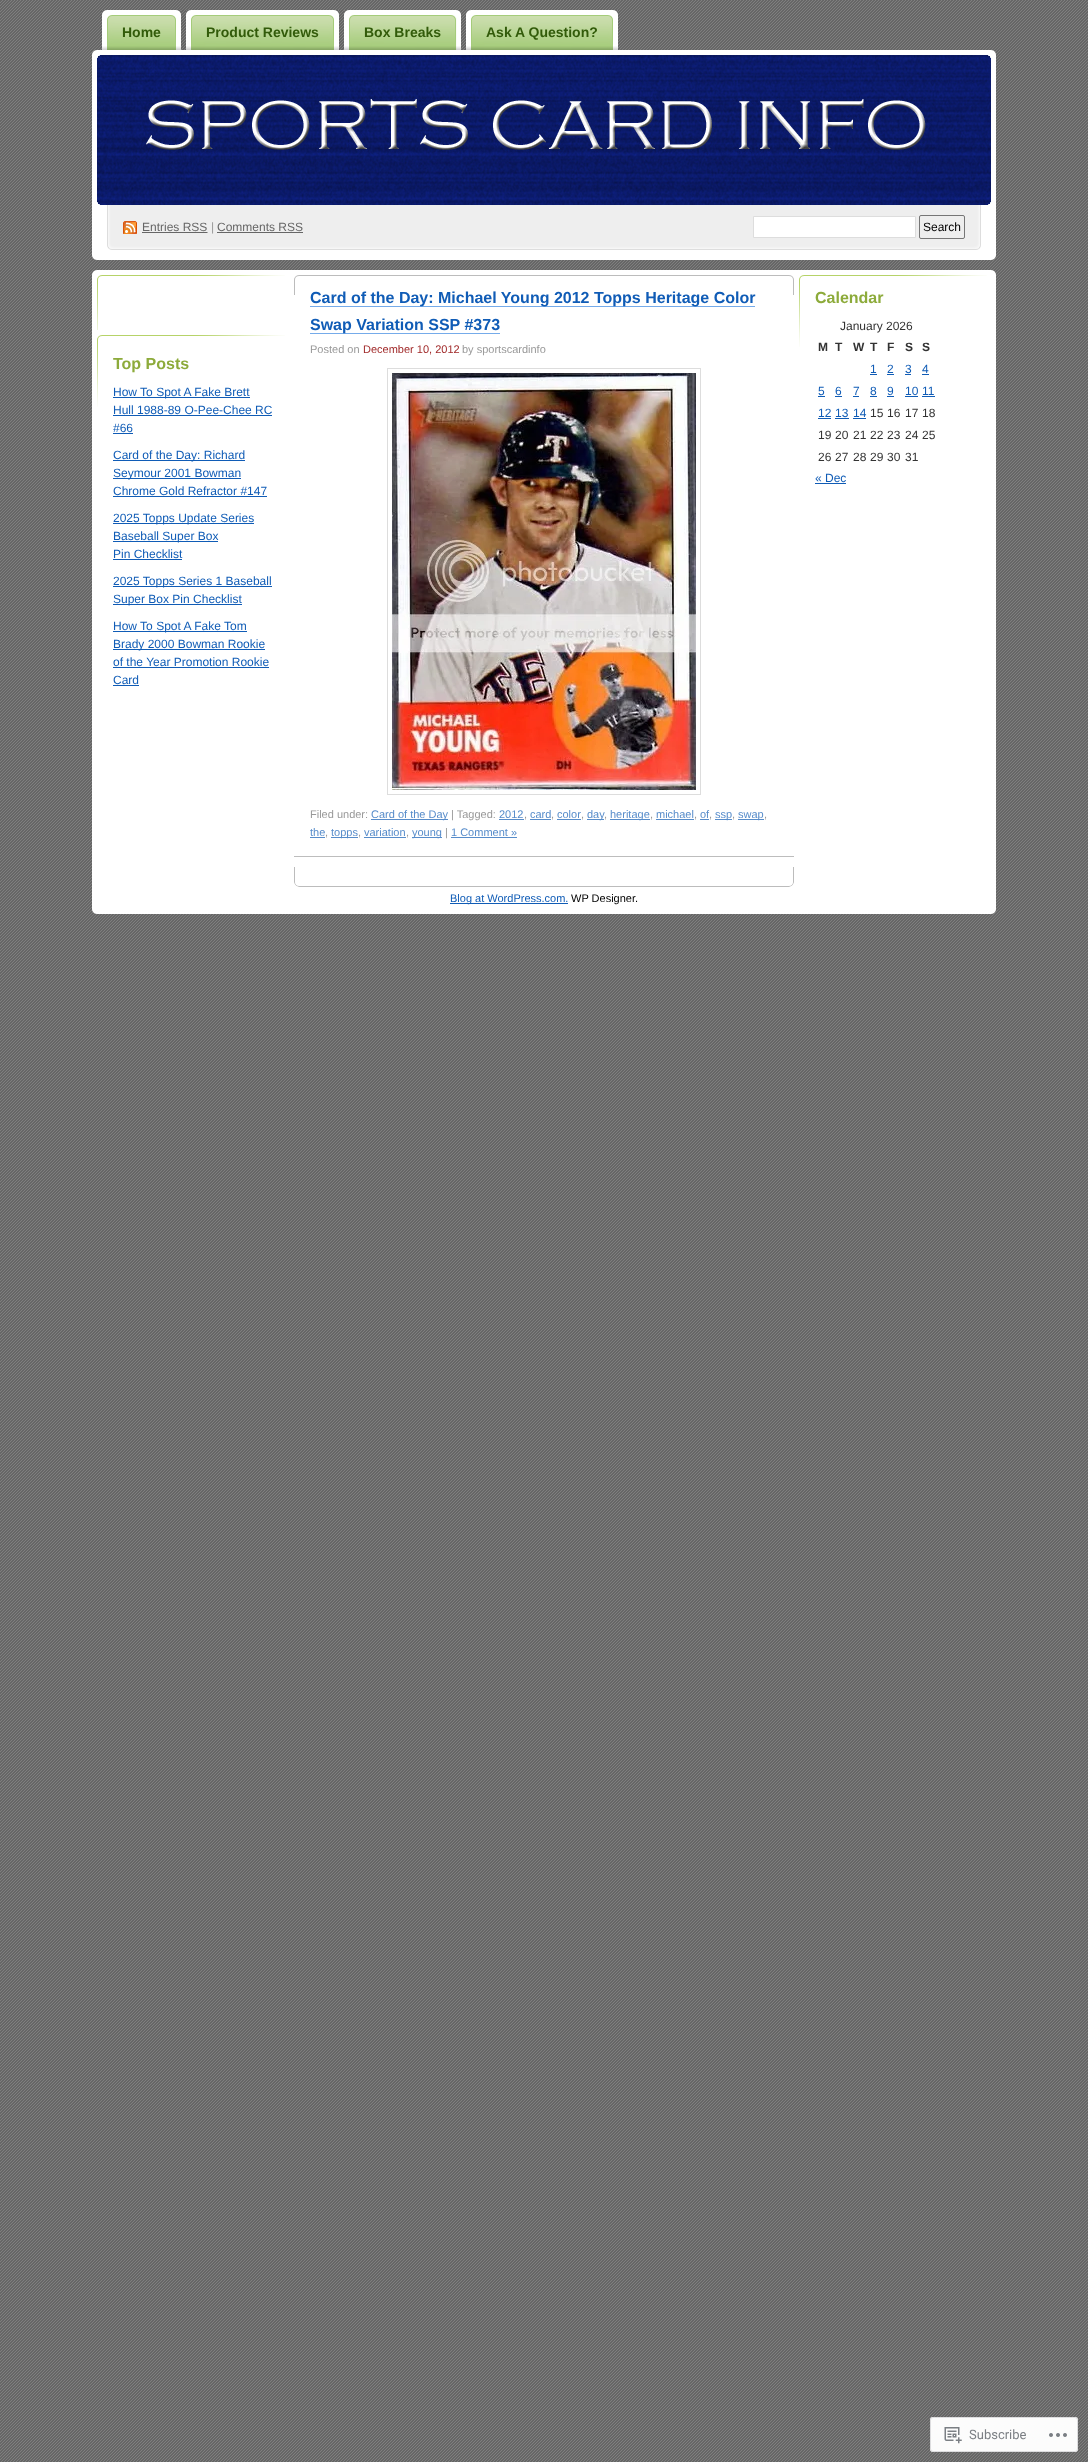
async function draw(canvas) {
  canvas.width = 1088
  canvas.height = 2462
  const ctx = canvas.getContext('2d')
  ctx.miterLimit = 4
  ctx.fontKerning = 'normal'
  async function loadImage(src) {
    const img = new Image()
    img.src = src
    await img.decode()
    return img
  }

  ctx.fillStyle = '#fff'
  ctx.fillRect(0, 0, 1088, 2462)
  ctx.drawImage(await loadImage('image0.png'), 0, 0, 1088, 2462)
  ctx.drawImage(await loadImage('image1.png'), 112, 10, 69, 40)
  ctx.drawImage(await loadImage('image2.png'), 102, 10, 10, 40)
  ctx.font = 'bold 14px Liberation Sans'
  ctx.fillStyle = '#325b0a'
  ctx.fillText('Home', 122, 37)
  ctx.drawImage(await loadImage('image3.png'), 196, 10, 143, 40)
  ctx.drawImage(await loadImage('image2.png'), 186, 10, 10, 40)
  ctx.fillText('Product Reviews', 206, 37)
  ctx.drawImage(await loadImage('image4.png'), 354, 10, 107, 40)
  ctx.drawImage(await loadImage('image2.png'), 344, 10, 10, 40)
  ctx.fillText('Box Breaks', 364, 37)
  ctx.drawImage(await loadImage('image5.png'), 476, 10, 142, 40)
  ctx.drawImage(await loadImage('image2.png'), 466, 10, 10, 40)
  ctx.fillText('Ask A Question?', 486, 37)
  ctx.drawImage(await loadImage('image7.png'), 97, 55, 894, 150)
  ctx.drawImage(await loadImage('image6.png'), 92, 50, 904, 210)
  ctx.drawImage(await loadImage('image8.png'), 123, 221, 14, 13)
  ctx.font = '12px Liberation Sans'
  ctx.fillStyle = '#666'
  ctx.fillText('Entries RSS', 142, 231)
  ctx.fillRect(142, 232, 41, 1)
  ctx.beginPath()
  ctx.moveTo(182.5, 232.5)
  ctx.lineTo(207.5, 232.5)
  ctx.strokeStyle = '#666'
  ctx.setLineDash([1, 1])
  ctx.stroke()
  ctx.fillRect(183, 232, 24, 1)
  ctx.fillStyle = '#999'
  ctx.fillText('|', 211, 231)
  ctx.fillStyle = '#666'
  ctx.fillText('Comments RSS', 217, 231)
  ctx.fillRect(217, 232, 86, 1)
  ctx.fillStyle = '#fff'
  ctx.beginPath()
  ctx.rect(753.5, 216.5, 162, 21)
  ctx.fill()
  ctx.strokeStyle = '#ddd'
  ctx.setLineDash([])
  ctx.stroke()
  ctx.beginPath()
  ctx.roundRect(919.5, 215.5, 45, 23, 1.5)
  ctx.strokeStyle = '#767676'
  ctx.stroke()
  ctx.fillStyle = '#000'
  ctx.fillText('Search', 923, 231)
  ctx.fillStyle = '#fff'
  ctx.fillRect(92, 275, 904, 634)
  ctx.drawImage(await loadImage('image9.png'), 92, 909, 904, 5)
  ctx.drawImage(await loadImage('image10.png'), 92, 270, 904, 5)
  ctx.drawImage(await loadImage('image11.png'), 97, 275, 188, 55)
  ctx.drawImage(await loadImage('image12.png'), 97, 335, 188, 72)
  ctx.font = 'bold 16px Liberation Sans'
  ctx.fillStyle = '#8dab3b'
  ctx.fillText('Top Posts', 113, 369)
  ctx.fillStyle = '#105cb6'
  ctx.fillRect(113, 397, 137, 1)
  ctx.font = '12px Liberation Sans'
  ctx.fillText('How To Spot A Fake Brett', 113, 396)
  ctx.fillText('Hull 1988-89 O-Pee-Chee RC', 113, 414)
  ctx.fillRect(113, 415, 159, 1)
  ctx.fillText('#66', 113, 432)
  ctx.fillRect(113, 433, 20, 1)
  ctx.fillRect(113, 460, 132, 1)
  ctx.fillText('Card of the Day: Richard', 113, 459)
  ctx.fillRect(113, 478, 128, 1)
  ctx.fillText('Seymour 2001 Bowman', 113, 477)
  ctx.fillText('Chrome Gold Refractor #147', 113, 495)
  ctx.fillRect(113, 496, 154, 1)
  ctx.fillRect(113, 523, 141, 1)
  ctx.fillText('2025 Topps Update Series', 113, 522)
  ctx.fillRect(113, 541, 105, 1)
  ctx.fillText('Baseball Super Box', 113, 540)
  ctx.fillText('Pin Checklist', 113, 558)
  ctx.fillRect(113, 559, 69, 1)
  ctx.fillRect(113, 586, 159, 1)
  ctx.fillText('2025 Topps Series 1 Baseball', 113, 585)
  ctx.fillRect(113, 604, 129, 1)
  ctx.fillText('Super Box Pin Checklist', 113, 603)
  ctx.fillRect(113, 631, 134, 1)
  ctx.fillText('How To Spot A Fake Tom', 113, 630)
  ctx.fillRect(113, 649, 152, 1)
  ctx.fillText('Brady 2000 Bowman Rookie', 113, 648)
  ctx.fillText('of the Year Promotion Rookie', 113, 666)
  ctx.fillRect(113, 667, 156, 1)
  ctx.fillText('Card', 113, 684)
  ctx.fillRect(113, 685, 26, 1)
  ctx.drawImage(await loadImage('image13.png'), 294, 867, 500, 20)
  ctx.drawImage(await loadImage('image14.png'), 294, 275, 500, 20)
  ctx.fillStyle = '#75abea'
  ctx.fillRect(310, 306, 445, 1)
  ctx.font = 'bold 16px Liberation Sans'
  ctx.fillStyle = '#105cb6'
  ctx.fillText('Card of the Day: Michael Young 2012 Topps Heritage Color', 310, 303)
  ctx.fillStyle = '#75abea'
  ctx.fillRect(310, 333, 190, 1)
  ctx.fillStyle = '#105cb6'
  ctx.fillText('Swap Variation SSP #373', 310, 330)
  ctx.font = '11px Liberation Sans'
  ctx.fillStyle = '#999'
  ctx.fillText('Posted on', 310, 353)
  ctx.fillStyle = '#a12a2a'
  ctx.fillText('December 10, 2012', 363, 353)
  ctx.fillStyle = '#999'
  ctx.fillText('by sportscardinfo', 462, 353)
  ctx.strokeStyle = '#ddd'
  ctx.strokeRect(387.5, 368.5, 313, 426)
  ctx.drawImage(await loadImage('image15.png'), 392, 373, 304, 417)
  ctx.fillText('Filed under:', 310, 818)
  ctx.fillStyle = '#578cca'
  ctx.fillRect(371, 819, 77, 1)
  ctx.fillText('Card of the Day', 371, 818)
  ctx.fillStyle = '#999'
  ctx.fillText('| Tagged:', 451, 818)
  ctx.fillStyle = '#578cca'
  ctx.fillText('2012', 499, 818)
  ctx.fillRect(499, 819, 25, 1)
  ctx.fillStyle = '#999'
  ctx.fillText(',', 524, 818)
  ctx.fillStyle = '#578cca'
  ctx.fillText('card', 530, 818)
  ctx.fillRect(530, 819, 21, 1)
  ctx.fillStyle = '#999'
  ctx.fillText(',', 551, 818)
  ctx.fillStyle = '#578cca'
  ctx.fillText('color', 557, 818)
  ctx.fillRect(557, 819, 24, 1)
  ctx.fillStyle = '#999'
  ctx.fillText(',', 581, 818)
  ctx.fillStyle = '#578cca'
  ctx.fillRect(587, 819, 17, 1)
  ctx.fillText('day', 587, 818)
  ctx.fillRect(610, 819, 40, 1)
  ctx.fillText('heritage', 610, 818)
  ctx.fillText('michael', 656, 818)
  ctx.fillRect(656, 819, 38, 1)
  ctx.fillText('of', 700, 818)
  ctx.fillRect(700, 819, 9, 1)
  ctx.fillRect(715, 819, 17, 1)
  ctx.fillText('ssp', 715, 818)
  ctx.fillRect(738, 819, 26, 1)
  ctx.fillText('swap', 738, 818)
  ctx.fillStyle = '#999'
  ctx.fillText(',', 604, 818)
  ctx.fillText(',', 650, 818)
  ctx.fillText(',', 694, 818)
  ctx.fillText(',', 709, 818)
  ctx.fillText(',', 732, 818)
  ctx.fillText(',', 764, 818)
  ctx.fillStyle = '#578cca'
  ctx.fillText('the', 310, 836)
  ctx.fillRect(310, 837, 15, 1)
  ctx.fillStyle = '#999'
  ctx.fillText(',', 325, 836)
  ctx.fillStyle = '#578cca'
  ctx.fillRect(331, 837, 27, 1)
  ctx.fillText('topps', 331, 836)
  ctx.fillStyle = '#999'
  ctx.fillText(',', 358, 836)
  ctx.fillStyle = '#578cca'
  ctx.fillText('variation', 364, 836)
  ctx.fillRect(364, 837, 42, 1)
  ctx.fillStyle = '#999'
  ctx.fillText(',', 406, 836)
  ctx.fillStyle = '#578cca'
  ctx.fillRect(412, 837, 30, 1)
  ctx.fillText('young', 412, 836)
  ctx.fillStyle = '#999'
  ctx.fillText('|', 445, 836)
  ctx.fillStyle = '#578cca'
  ctx.fillText('1 Comment »', 451, 836)
  ctx.fillRect(451, 837, 66, 1)
  ctx.fillStyle = '#bdbdbd'
  ctx.fillRect(294, 856, 500, 1)
  ctx.drawImage(await loadImage('image12.png'), 799, 275, 188, 72)
  ctx.font = 'bold 16px Liberation Sans'
  ctx.fillStyle = '#8dab3b'
  ctx.fillText('Calendar', 815, 303)
  ctx.font = '12px Liberation Sans'
  ctx.fillStyle = '#333'
  ctx.fillText('January 2026', 840, 330)
  ctx.font = 'bold 12px Liberation Sans'
  ctx.fillText('M', 818, 351)
  ctx.fillText('T', 835, 351)
  ctx.fillText('W', 853, 351)
  ctx.fillText('T', 870, 351)
  ctx.fillText('F', 887, 351)
  ctx.fillText('S', 905, 351)
  ctx.fillText('S', 922, 351)
  ctx.font = '12px Liberation Sans'
  ctx.fillStyle = '#105cb6'
  ctx.fillText('1', 870, 373)
  ctx.fillRect(870, 374, 7, 1)
  ctx.fillText('2', 887, 373)
  ctx.fillRect(887, 374, 7, 1)
  ctx.fillText('3', 905, 373)
  ctx.fillRect(905, 374, 6, 1)
  ctx.fillText('4', 922, 373)
  ctx.fillRect(922, 374, 7, 1)
  ctx.fillText('5', 818, 395)
  ctx.fillRect(818, 396, 7, 1)
  ctx.fillText('6', 835, 395)
  ctx.fillRect(835, 396, 7, 1)
  ctx.fillText('7', 853, 395)
  ctx.fillRect(853, 396, 6, 1)
  ctx.fillText('8', 870, 395)
  ctx.fillRect(870, 396, 7, 1)
  ctx.fillText('9', 887, 395)
  ctx.fillRect(887, 396, 7, 1)
  ctx.fillText('10', 905, 395)
  ctx.fillRect(905, 396, 13, 1)
  ctx.fillText('11', 922, 395)
  ctx.fillRect(922, 396, 13, 1)
  ctx.fillText('12', 818, 417)
  ctx.fillRect(818, 418, 13, 1)
  ctx.fillText('13', 835, 417)
  ctx.fillRect(835, 418, 14, 1)
  ctx.fillText('14', 853, 417)
  ctx.fillRect(853, 418, 13, 1)
  ctx.fillStyle = '#333'
  ctx.fillText('15', 870, 417)
  ctx.fillText('16', 887, 417)
  ctx.fillText('17', 905, 417)
  ctx.fillText('18', 922, 417)
  ctx.fillText('19', 818, 439)
  ctx.fillText('20', 835, 439)
  ctx.fillText('21', 853, 439)
  ctx.fillText('22', 870, 439)
  ctx.fillText('23', 887, 439)
  ctx.fillText('24', 905, 439)
  ctx.fillText('25', 922, 439)
  ctx.fillText('26', 818, 461)
  ctx.fillText('27', 835, 461)
  ctx.fillText('28', 853, 461)
  ctx.fillText('29', 870, 461)
  ctx.fillText('30', 887, 461)
  ctx.fillText('31', 905, 461)
  ctx.fillStyle = '#105cb6'
  ctx.fillText('« Dec', 815, 482)
  ctx.fillRect(815, 483, 31, 1)
  ctx.fillRect(450, 903, 118, 1)
  ctx.font = '11px Liberation Sans'
  ctx.fillText('Blog at WordPress.com.', 450, 902)
  ctx.fillStyle = '#000'
  ctx.fillText('WP Designer.', 571, 902)
  ctx.fillStyle = '#fffffffa'
  ctx.beginPath()
  ctx.roundRect(930, 2417, 148, 35, 3)
  ctx.fill()
  ctx.beginPath()
  ctx.roundRect(930.5, 2417.5, 147, 34, 2.5)
  ctx.strokeStyle = '#dcdcdefa'
  ctx.stroke()
  ctx.drawImage(await loadImage('image16.png'), 944, 2427, 18, 17)
  ctx.font = '13px Roboto'
  ctx.fillStyle = '#7b7f84'
  ctx.fillText('Subscribe', 969, 2439)
  ctx.drawImage(await loadImage('image17.png'), 1049, 2433, 18, 4)
}

draw(document.querySelector('canvas'))
